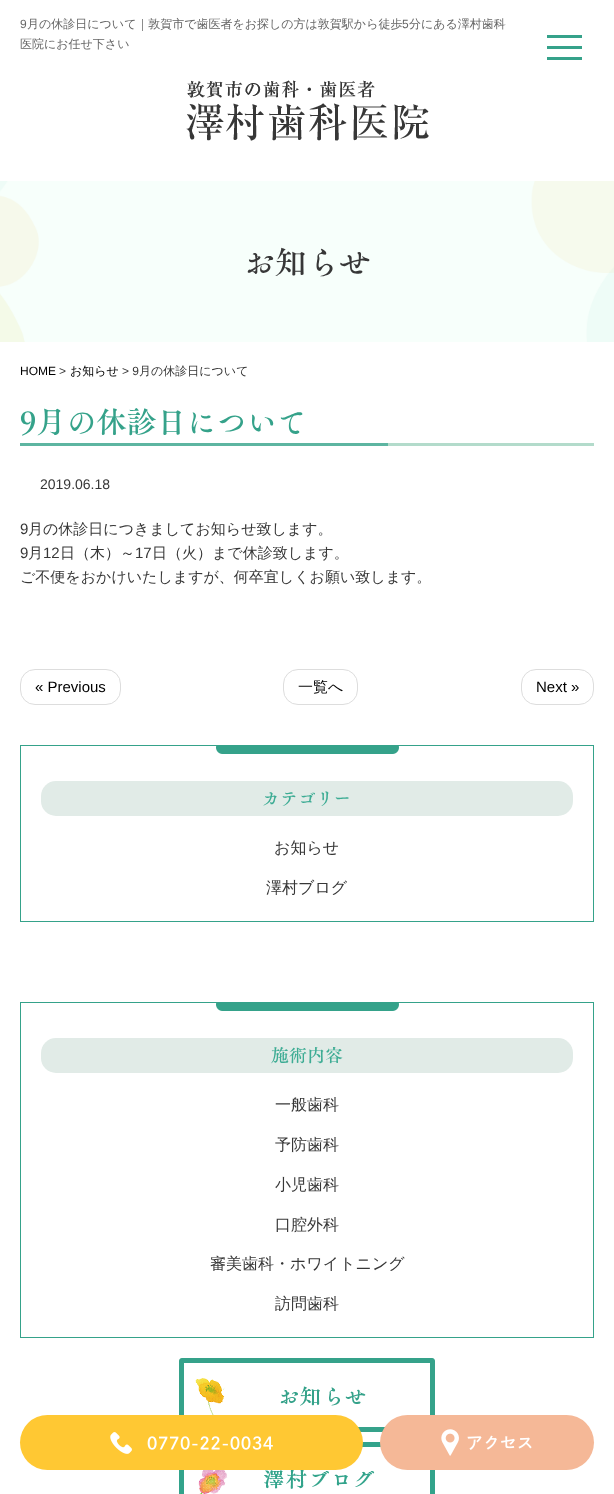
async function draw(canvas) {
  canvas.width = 614
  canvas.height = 1494
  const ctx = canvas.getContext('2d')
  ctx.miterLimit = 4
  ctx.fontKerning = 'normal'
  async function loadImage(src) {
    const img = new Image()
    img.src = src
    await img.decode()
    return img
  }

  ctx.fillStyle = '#fff'
  ctx.fillRect(0, 0, 614, 1494)
  ctx.font = '12px Liberation Sans'
  ctx.fillStyle = '#666'
  ctx.fillText('9', 20, 28)
  ctx.font = '500 12px WenQuanYi Zen Hei'
  ctx.fillText('月の休診日について｜敦賀市で歯医者をお探しの方は敦賀駅から徒歩', 27, 28)
  ctx.font = '12px Liberation Sans'
  ctx.fillText('5', 402, 28)
  ctx.font = '500 12px WenQuanYi Zen Hei'
  ctx.fillText('分にある澤村歯科', 409, 28)
  ctx.fillText('医院にお任せ下さい', 20, 48)
  ctx.fillStyle = '#35a28a'
  ctx.fillRect(547, 35, 35, 3)
  ctx.fillRect(547, 46, 35, 3)
  ctx.fillRect(547, 57, 35, 3)
  ctx.drawImage(await loadImage('image0.png'), 186, 80, 243, 61)
  ctx.drawImage(await loadImage('image1.png'), 0, 181, 614, 161)
  ctx.font = '600 32px "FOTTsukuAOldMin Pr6"'
  ctx.fillStyle = '#373737'
  ctx.fillText('お知らせ', 243, 274)
  ctx.font = '12px Liberation Sans'
  ctx.fillStyle = '#000'
  ctx.fillText('HOME', 20, 375)
  ctx.fillStyle = '#373737'
  ctx.fillText('>', 59, 375)
  ctx.font = '500 12px WenQuanYi Zen Hei'
  ctx.fillStyle = '#000'
  ctx.fillText('お知らせ', 70, 375)
  ctx.font = '12px Liberation Sans'
  ctx.fillStyle = '#373737'
  ctx.fillText('> 9', 122, 375)
  ctx.font = '500 12px WenQuanYi Zen Hei'
  ctx.fillText('月の休診日について', 139, 375)
  ctx.drawImage(await loadImage('image2.png'), 20, 443, 574, 3)
  ctx.font = '600 30px "FOTTsukuAOldMin Pr6"'
  ctx.fillStyle = '#35a28a'
  ctx.fillText('9月の休診日について', 20, 433)
  ctx.font = '14px Liberation Sans'
  ctx.fillStyle = '#373737'
  ctx.fillText('2019.06.18', 40, 489)
  ctx.font = '15px Liberation Sans'
  ctx.fillText('9', 20, 534)
  ctx.font = '500 15px WenQuanYi Zen Hei'
  ctx.fillText('月の休診日につきましてお知らせ致します。', 28, 534)
  ctx.font = '15px Liberation Sans'
  ctx.fillText('9', 20, 558)
  ctx.font = '500 15px WenQuanYi Zen Hei'
  ctx.fillText('月', 28, 558)
  ctx.font = '15px Liberation Sans'
  ctx.fillText('12', 43, 558)
  ctx.font = '500 15px WenQuanYi Zen Hei'
  ctx.fillText('日（木）～', 60, 558)
  ctx.font = '15px Liberation Sans'
  ctx.fillText('17', 135, 558)
  ctx.font = '500 15px WenQuanYi Zen Hei'
  ctx.fillText('日（火）まで休診致します。', 152, 558)
  ctx.fillText('ご不便をおかけいたしますが、何卒宜しくお願い致します。', 20, 582)
  ctx.beginPath()
  ctx.roundRect(20.5, 669.5, 100, 35, 14.5)
  ctx.strokeStyle = '#ddd'
  ctx.stroke()
  ctx.font = '15px Liberation Sans'
  ctx.fillStyle = '#000'
  ctx.fillText('« Previous', 35, 692)
  ctx.beginPath()
  ctx.roundRect(283.5, 669.5, 74, 35, 14.5)
  ctx.stroke()
  ctx.font = '500 15px WenQuanYi Zen Hei'
  ctx.fillText('一覧へ', 298, 692)
  ctx.beginPath()
  ctx.roundRect(521.5, 669.5, 72, 35, 14.5)
  ctx.stroke()
  ctx.font = '15px Liberation Sans'
  ctx.fillText('Next »', 536, 692)
  ctx.drawImage(await loadImage('image3.png'), 216, 746, 183, 8)
  ctx.strokeStyle = '#35a28a'
  ctx.strokeRect(20.5, 745.5, 573, 176)
  ctx.fillStyle = '#e1ebe7'
  ctx.beginPath()
  ctx.roundRect(41, 781, 532, 35, 15)
  ctx.fill()
  ctx.font = '600 18px "FOTTsukuAOldMin Pr6"'
  ctx.fillStyle = '#3dac94'
  ctx.fillText('カテゴリー', 262, 805)
  ctx.font = '500 16px WenQuanYi Zen Hei'
  ctx.fillStyle = '#373737'
  ctx.fillText('お知らせ', 274, 853)
  ctx.fillText('澤村ブログ', 266, 893)
  ctx.drawImage(await loadImage('image3.png'), 216, 1003, 183, 8)
  ctx.strokeRect(20.5, 1002.5, 573, 335)
  ctx.fillStyle = '#e1ebe7'
  ctx.beginPath()
  ctx.roundRect(41, 1038, 532, 35, 15)
  ctx.fill()
  ctx.font = '600 18px "FOTTsukuAOldMin Pr6"'
  ctx.fillStyle = '#3dac94'
  ctx.fillText('施術内容', 271, 1062)
  ctx.font = '500 16px WenQuanYi Zen Hei'
  ctx.fillStyle = '#373737'
  ctx.fillText('一般歯科', 275, 1110)
  ctx.fillText('予防歯科', 275, 1150)
  ctx.fillText('小児歯科', 275, 1190)
  ctx.fillText('口腔外科', 275, 1230)
  ctx.fillText('審美歯科・ホワイトニング', 210, 1269)
  ctx.fillText('訪問歯科', 275, 1309)
  ctx.drawImage(await loadImage('image4.png'), 179, 1358, 256, 74)
  ctx.drawImage(await loadImage('image5.png'), 179, 1442, 256, 52)
  ctx.fillStyle = '#ffc833'
  ctx.beginPath()
  ctx.roundRect(20, 1415, 343, 55, 27.5)
  ctx.fill()
  ctx.drawImage(await loadImage('image6.png'), 110, 1432, 163, 22)
  ctx.fillStyle = '#f5b897'
  ctx.beginPath()
  ctx.roundRect(380, 1415, 214, 55, 27.5)
  ctx.fill()
  ctx.drawImage(await loadImage('image7.png'), 441, 1429, 91, 27)
}

draw(document.querySelector('canvas'))
